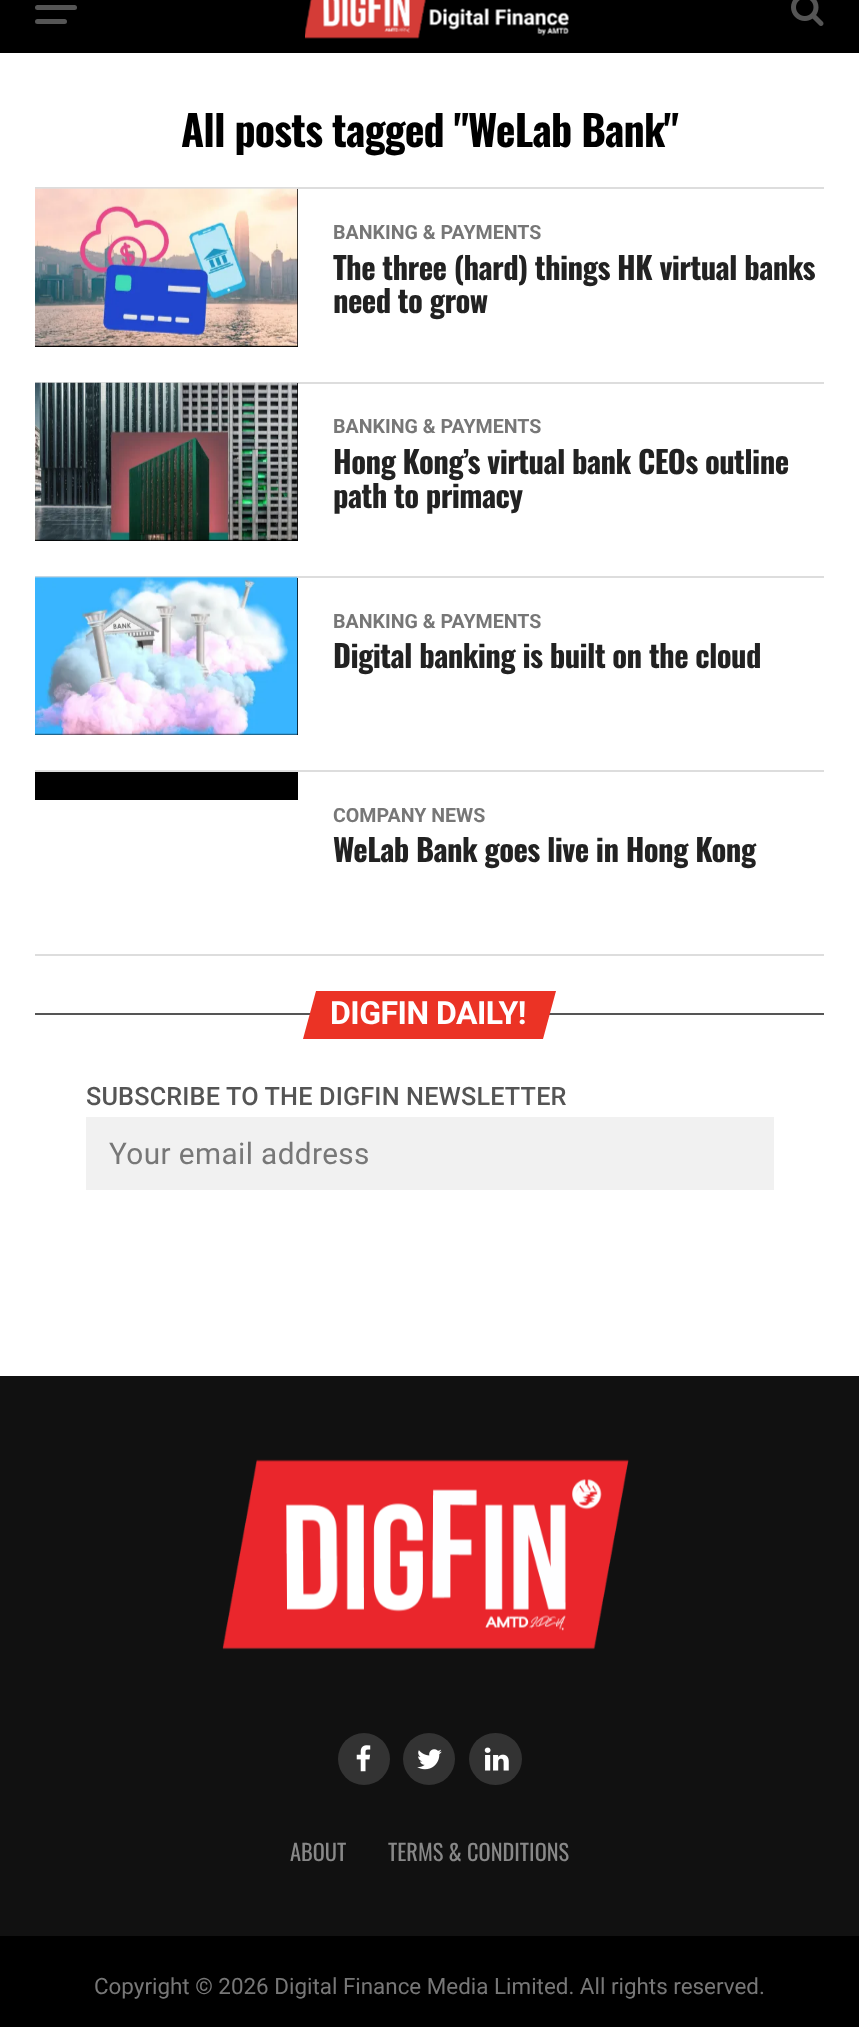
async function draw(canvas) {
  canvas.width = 859
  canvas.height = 2027
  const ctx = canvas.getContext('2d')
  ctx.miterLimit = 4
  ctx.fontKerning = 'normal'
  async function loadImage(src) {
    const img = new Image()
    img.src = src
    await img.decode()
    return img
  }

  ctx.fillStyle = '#fff'
  ctx.fillRect(0, 0, 859, 2027)
  ctx.fillStyle = '#000'
  ctx.fillRect(0, 0, 859, 53)
  ctx.fillStyle = '#555'
  ctx.beginPath()
  ctx.roundRect(35, 5, 42, 5, 2.5)
  ctx.fill()
  ctx.beginPath()
  ctx.roundRect(35, 19, 32, 5, 2.5)
  ctx.fill()
  ctx.drawImage(await loadImage('image0.png'), 305, 0, 264, 39)
  ctx.drawImage(await loadImage('image1.png'), 791, 0, 33, 26)
  ctx.letterSpacing = '-0.85px'
  ctx.font = 'bold 42px Oswald'
  ctx.fillStyle = '#000'
  ctx.fillText('All posts tagged "WeLab Bank"', 181, 147)
  ctx.fillStyle = '#ddd'
  ctx.fillRect(35, 187, 789, 2)
  ctx.fillStyle = '#000'
  ctx.fillRect(35, 189, 263, 158)
  ctx.drawImage(await loadImage('image2.png'), 35, 188, 263, 159)
  ctx.letterSpacing = '0px'
  ctx.font = 'bold 19.6px Roboto'
  ctx.fillStyle = '#777'
  ctx.fillText('BANKING & PAYMENTS', 333, 239)
  ctx.letterSpacing = '-0.6px'
  ctx.font = 'bold 30.75px Oswald'
  ctx.fillStyle = '#222'
  ctx.fillText('The three (hard) things HK virtual banks', 333, 280)
  ctx.fillText('need to grow', 333, 313)
  ctx.fillStyle = '#ddd'
  ctx.fillRect(35, 382, 789, 2)
  ctx.fillStyle = '#000'
  ctx.fillRect(35, 383, 263, 158)
  ctx.drawImage(await loadImage('image3.png'), 35, 382, 263, 159)
  ctx.letterSpacing = '0px'
  ctx.font = 'bold 19.6px Roboto'
  ctx.fillStyle = '#777'
  ctx.fillText('BANKING & PAYMENTS', 333, 433)
  ctx.letterSpacing = '-0.6px'
  ctx.font = 'bold 30.75px Oswald'
  ctx.fillStyle = '#222'
  ctx.fillText('Hong Kong’s virtual bank CEOs outline', 333, 474)
  ctx.fillText('path to primacy', 333, 508)
  ctx.fillStyle = '#ddd'
  ctx.fillRect(35, 576, 789, 2)
  ctx.fillStyle = '#000'
  ctx.fillRect(35, 578, 263, 157)
  ctx.drawImage(await loadImage('image4.png'), 35, 576, 263, 159)
  ctx.letterSpacing = '0px'
  ctx.font = 'bold 19.6px Roboto'
  ctx.fillStyle = '#777'
  ctx.fillText('BANKING & PAYMENTS', 333, 628)
  ctx.letterSpacing = '-0.6px'
  ctx.font = 'bold 30.75px Oswald'
  ctx.fillStyle = '#222'
  ctx.fillText('Digital banking is built on the cloud', 333, 668)
  ctx.fillStyle = '#ddd'
  ctx.fillRect(35, 770, 789, 2)
  ctx.fillStyle = '#000'
  ctx.fillRect(35, 772, 263, 28)
  ctx.letterSpacing = '0px'
  ctx.font = 'bold 19.6px Roboto'
  ctx.fillStyle = '#777'
  ctx.fillText('COMPANY NEWS', 333, 822)
  ctx.letterSpacing = '-0.6px'
  ctx.font = 'bold 30.75px Oswald'
  ctx.fillStyle = '#222'
  ctx.fillText('WeLab Bank goes live in Hong Kong', 333, 862)
  ctx.fillStyle = '#ddd'
  ctx.fillRect(35, 954, 789, 2)
  ctx.fillStyle = '#555'
  ctx.fillRect(35, 1013, 789, 2)
  ctx.fillStyle = '#eb3325'
  ctx.beginPath()
  ctx.moveTo(316, 991)
  ctx.lineTo(556, 991)
  ctx.lineTo(543, 1039)
  ctx.lineTo(303, 1039)
  ctx.closePath()
  ctx.fill()
  ctx.letterSpacing = '-0.5px'
  ctx.font = 'bold 32px Roboto'
  ctx.fillStyle = '#fff'
  ctx.fillText('DIGFIN DAILY!', 330, 1024)
  ctx.letterSpacing = '0.15px'
  ctx.font = '500 25.25px Roboto'
  ctx.fillStyle = '#555'
  ctx.fillText('SUBSCRIBE TO THE DIGFIN NEWSLETTER', 86, 1105)
  ctx.fillStyle = '#f1f1f1'
  ctx.fillRect(86, 1117, 688, 73)
  ctx.letterSpacing = '0.4px'
  ctx.font = '29.75px Roboto'
  ctx.fillStyle = '#777'
  ctx.fillText('Your email address', 109, 1164)
  ctx.fillStyle = '#111'
  ctx.fillRect(0, 1376, 859, 560)
  ctx.drawImage(await loadImage('image5.png'), 222, 1459, 407, 191)
  ctx.fillStyle = '#333'
  ctx.beginPath()
  ctx.arc(364, 1759, 26, 0, 2 * Math.PI)
  ctx.fill()
  ctx.drawImage(await loadImage('image6.png'), 356, 1745, 15, 27)
  ctx.beginPath()
  ctx.arc(429, 1759, 26, 0, 2 * Math.PI)
  ctx.fill()
  ctx.drawImage(await loadImage('image7.png'), 417, 1749, 25, 21)
  ctx.beginPath()
  ctx.roundRect(469, 1733, 53, 52, 26)
  ctx.fill()
  ctx.drawImage(await loadImage('image8.png'), 484, 1747, 25, 24)
  ctx.letterSpacing = '0px'
  ctx.font = '22.4px Oswald'
  ctx.fillStyle = '#888'
  ctx.fillText('ABOUT', 290, 1861)
  ctx.fillText('TERMS & CONDITIONS', 388, 1861)
  ctx.fillStyle = '#000'
  ctx.fillRect(0, 1936, 859, 91)
  ctx.font = '22.4px Roboto'
  ctx.fillStyle = '#777'
  ctx.fillText('Copyright © 2026 Digital Finance Media Limited. All rights reserved.', 94, 1994)
}

draw(document.querySelector('canvas'))
